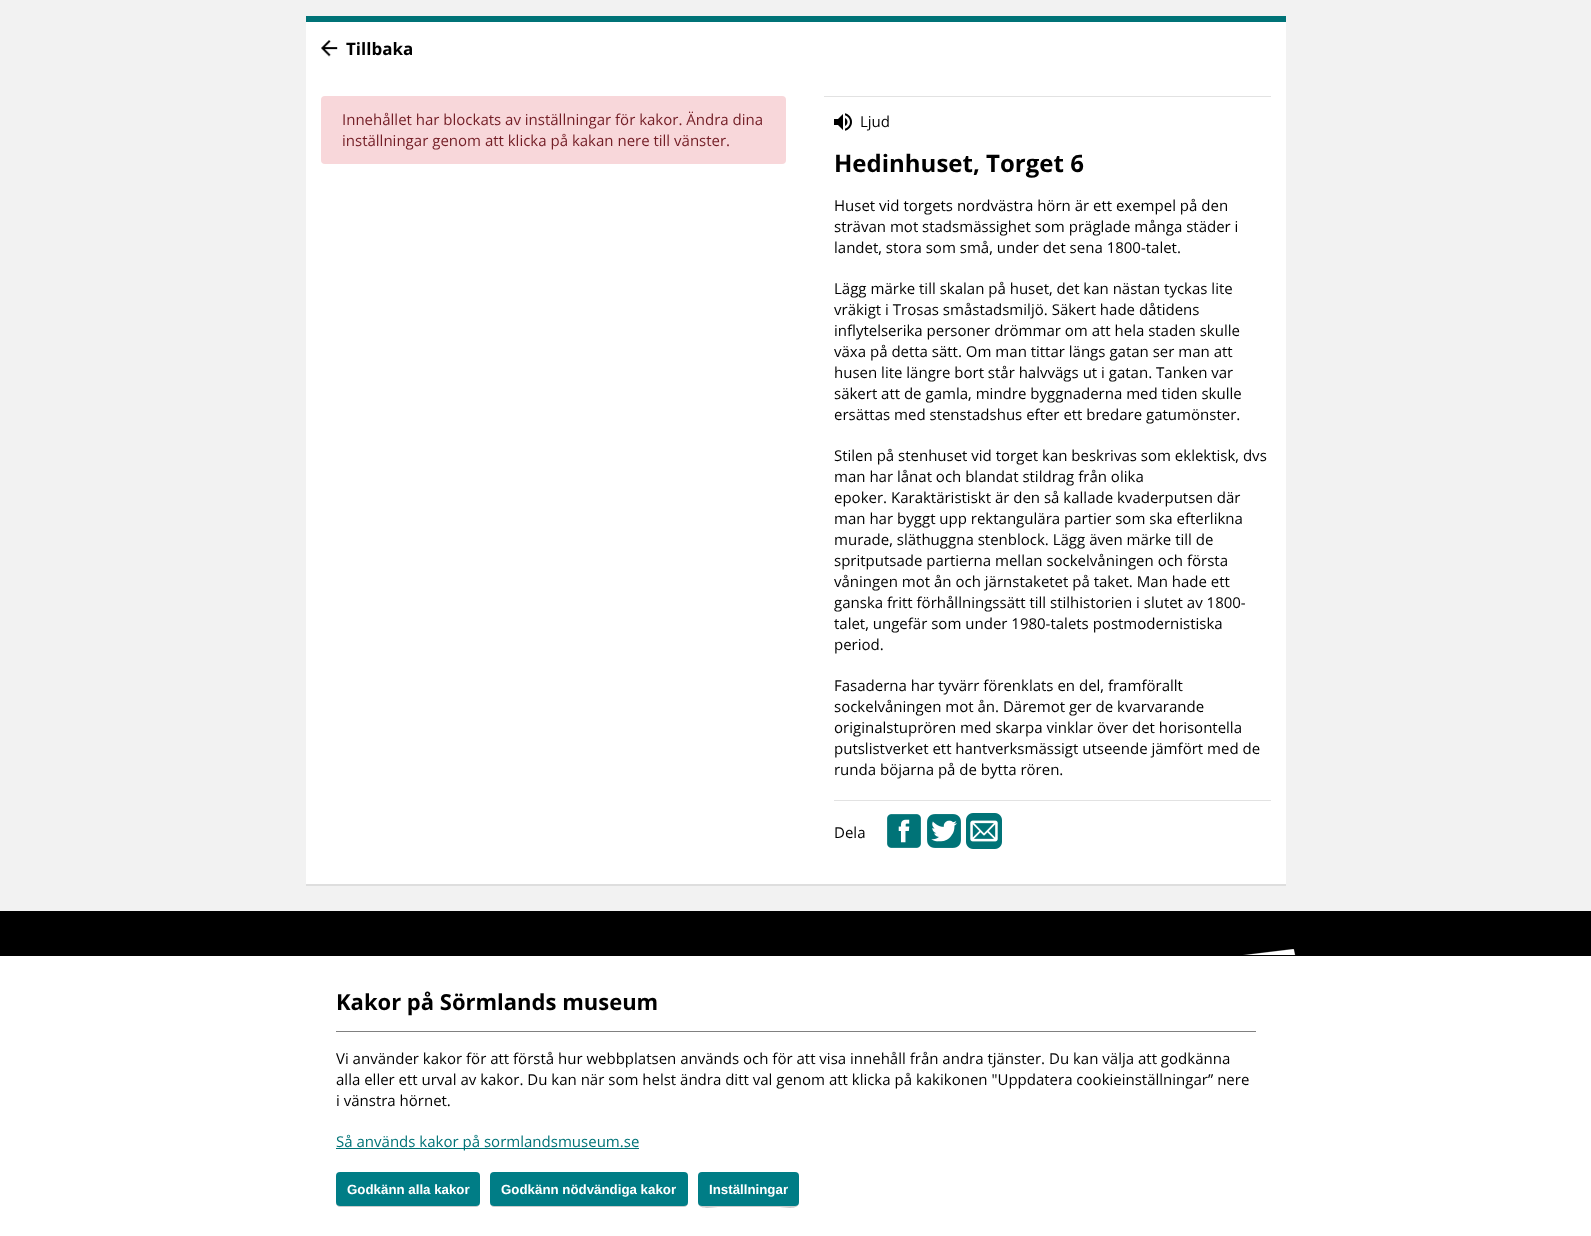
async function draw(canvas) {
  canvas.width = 1591
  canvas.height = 1236
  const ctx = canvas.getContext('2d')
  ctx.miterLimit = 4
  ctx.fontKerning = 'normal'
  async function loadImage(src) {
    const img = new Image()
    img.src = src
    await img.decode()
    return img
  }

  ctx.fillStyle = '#f2f2f2'
  ctx.fillRect(0, 0, 1591, 1236)
  ctx.fillStyle = '#fff'
  ctx.fillRect(306, 22, 980, 862)
  ctx.fillStyle = '#007377'
  ctx.fillRect(306, 16, 980, 6)
  ctx.fillStyle = '#dedede'
  ctx.fillRect(306, 884, 980, 2)
  ctx.drawImage(await loadImage('image0.png'), 321, 40, 17, 17)
  ctx.font = 'bold 17px Open Sans'
  ctx.fillStyle = '#000'
  ctx.fillText('Tillbaka', 346, 55)
  ctx.fillStyle = '#f8d7da'
  ctx.beginPath()
  ctx.roundRect(321, 96, 465, 68, 4)
  ctx.fill()
  ctx.font = '15px Open Sans'
  ctx.fillStyle = '#721c24'
  ctx.fillText('Innehållet har blockats av inställningar för kakor. Ändra dina', 342, 125)
  ctx.fillText('inställningar genom att klicka på kakan nere till vänster.', 342, 146)
  ctx.fillStyle = '#e2e2e2'
  ctx.fillRect(824, 96, 447, 1)
  ctx.drawImage(await loadImage('image1.png'), 834, 113, 18, 18)
  ctx.fillStyle = '#000'
  ctx.fillText('Ljud', 860, 127)
  ctx.font = 'bold 24px Open Sans'
  ctx.fillText('Hedinhuset, Torget 6', 834, 172)
  ctx.font = '15px Open Sans'
  ctx.fillText('Huset vid torgets nordvästra hörn är ett exempel på den', 834, 211)
  ctx.fillText('strävan mot stadsmässighet som präglade många städer i', 834, 232)
  ctx.fillText('landet, stora som små, under det sena 1800-talet.', 834, 253)
  ctx.fillText('Lägg märke till skalan på huset, det kan nästan tyckas lite', 834, 294)
  ctx.fillText('vräkigt i Trosas småstadsmiljö. Säkert hade dåtidens', 834, 315)
  ctx.fillText('inflytelserika personer drömmar om att hela staden skulle', 834, 336)
  ctx.fillText('växa på detta sätt. Om man tittar längs gatan ser man att', 834, 357)
  ctx.fillText('husen lite längre bort står halvvägs ut i gatan. Tanken var', 834, 378)
  ctx.fillText('säkert att de gamla, mindre byggnaderna med tiden skulle', 834, 399)
  ctx.fillText('ersättas med stenstadshus efter ett bredare gatumönster.', 834, 420)
  ctx.fillText('Stilen på stenhuset vid torget kan beskrivas som eklektisk, dvs', 834, 461)
  ctx.fillText('man har lånat och blandat stildrag från olika', 834, 482)
  ctx.fillText('epoker. Karaktäristiskt är den så kallade kvaderputsen där', 834, 503)
  ctx.fillText('man har byggt upp rektangulära partier som ska efterlikna', 834, 524)
  ctx.fillText('murade, släthuggna stenblock. Lägg även märke till de', 834, 545)
  ctx.fillText('spritputsade partierna mellan sockelvåningen och första', 834, 566)
  ctx.fillText('våningen mot ån och järnstaketet på taket. Man hade ett', 834, 587)
  ctx.fillText('ganska fritt förhållningssätt till stilhistorien i slutet av 1800-', 834, 608)
  ctx.fillText('talet, ungefär som under 1980-talets postmodernistiska', 834, 629)
  ctx.fillText('period.', 834, 650)
  ctx.fillText('Fasaderna har tyvärr förenklats en del, framförallt', 834, 691)
  ctx.fillText('sockelvåningen mot ån. Däremot ger de kvarvarande', 834, 712)
  ctx.fillText('originalstuprören med skarpa vinklar över det horisontella', 834, 733)
  ctx.fillText('putslistverket ett hantverksmässigt utseende jämfört med de', 834, 754)
  ctx.fillText('runda böjarna på de bytta rören.', 834, 775)
  ctx.fillStyle = '#e2e2e2'
  ctx.fillRect(834, 800, 437, 1)
  ctx.fillStyle = '#000'
  ctx.fillText('Dela', 834, 838)
  ctx.drawImage(await loadImage('image2.png'), 887, 814, 34, 34)
  ctx.drawImage(await loadImage('image3.png'), 927, 814, 34, 34)
  ctx.drawImage(await loadImage('image4.png'), 966, 813, 36, 36)
  ctx.fillRect(0, 911, 1591, 45)
  ctx.drawImage(await loadImage('image5.png'), 1243, 949, 53, 6)
  ctx.fillStyle = '#fff'
  ctx.fillRect(0, 956, 1591, 280)
  ctx.fillStyle = '#808080'
  ctx.fillRect(336, 1031, 920, 1)
  ctx.font = 'bold 22px Open Sans'
  ctx.fillStyle = '#000'
  ctx.fillText('Kakor på Sörmlands museum', 336, 1010)
  ctx.font = '15px Open Sans'
  ctx.fillText('Vi använder kakor för att förstå hur webbplatsen används och för att visa innehåll från andra tjänster. Du kan välja att godkänna', 336, 1064)
  ctx.fillText('alla eller ett urval av kakor. Du kan när som helst ändra ditt val genom att klicka på kakikonen "Uppdatera cookieinställningar” nere', 336, 1085)
  ctx.fillText('i vänstra hörnet.', 336, 1106)
  ctx.fillStyle = '#007377'
  ctx.fillRect(336, 1148, 303, 1)
  ctx.fillText('Så används kakor på sormlandsmuseum.se', 336, 1147)
  ctx.fillStyle = '#ccc'
  ctx.beginPath()
  ctx.moveTo(336, 1202)
  ctx.lineTo(336, 1203)
  ctx.bezierCurveTo(336, 1205, 338, 1207, 340, 1207)
  ctx.lineTo(476, 1207)
  ctx.bezierCurveTo(478, 1207, 480, 1205, 480, 1203)
  ctx.lineTo(480, 1202)
  ctx.bezierCurveTo(480, 1204, 478, 1206, 476, 1206)
  ctx.lineTo(340, 1206)
  ctx.bezierCurveTo(338, 1206, 336, 1204, 336, 1202)
  ctx.closePath()
  ctx.fill()
  ctx.fillStyle = '#007d86'
  ctx.beginPath()
  ctx.roundRect(336, 1172, 144, 34, 4)
  ctx.fill()
  ctx.font = 'bold 13.3px Liberation Sans'
  ctx.fillStyle = '#fff'
  ctx.fillText('Godkänn alla kakor', 347, 1194)
  ctx.fillStyle = '#ccc'
  ctx.beginPath()
  ctx.moveTo(490, 1202)
  ctx.lineTo(490, 1203)
  ctx.bezierCurveTo(490, 1205, 492, 1207, 494, 1207)
  ctx.lineTo(684, 1207)
  ctx.bezierCurveTo(686, 1207, 688, 1205, 688, 1203)
  ctx.lineTo(688, 1202)
  ctx.bezierCurveTo(688, 1204, 686, 1206, 684, 1206)
  ctx.lineTo(494, 1206)
  ctx.bezierCurveTo(492, 1206, 490, 1204, 490, 1202)
  ctx.closePath()
  ctx.fill()
  ctx.fillStyle = '#007d86'
  ctx.beginPath()
  ctx.roundRect(490, 1172, 198, 34, 4)
  ctx.fill()
  ctx.fillStyle = '#fff'
  ctx.fillText('Godkänn nödvändiga kakor', 501, 1194)
  ctx.fillStyle = '#ccc'
  ctx.beginPath()
  ctx.moveTo(698, 1202)
  ctx.bezierCurveTo(698, 1211, 713, 1207, 718, 1207)
  ctx.lineTo(780, 1207)
  ctx.bezierCurveTo(784, 1207, 799, 1211, 799, 1202)
  ctx.bezierCurveTo(799, 1204, 797, 1206, 795, 1206)
  ctx.lineTo(702, 1206)
  ctx.bezierCurveTo(700, 1206, 698, 1204, 698, 1202)
  ctx.closePath()
  ctx.fill()
  ctx.fillStyle = '#007d86'
  ctx.beginPath()
  ctx.roundRect(698, 1172, 101, 34, 4)
  ctx.fill()
  ctx.fillStyle = '#fff'
  ctx.fillText('Inställningar', 709, 1194)
}

draw(document.querySelector('canvas'))
